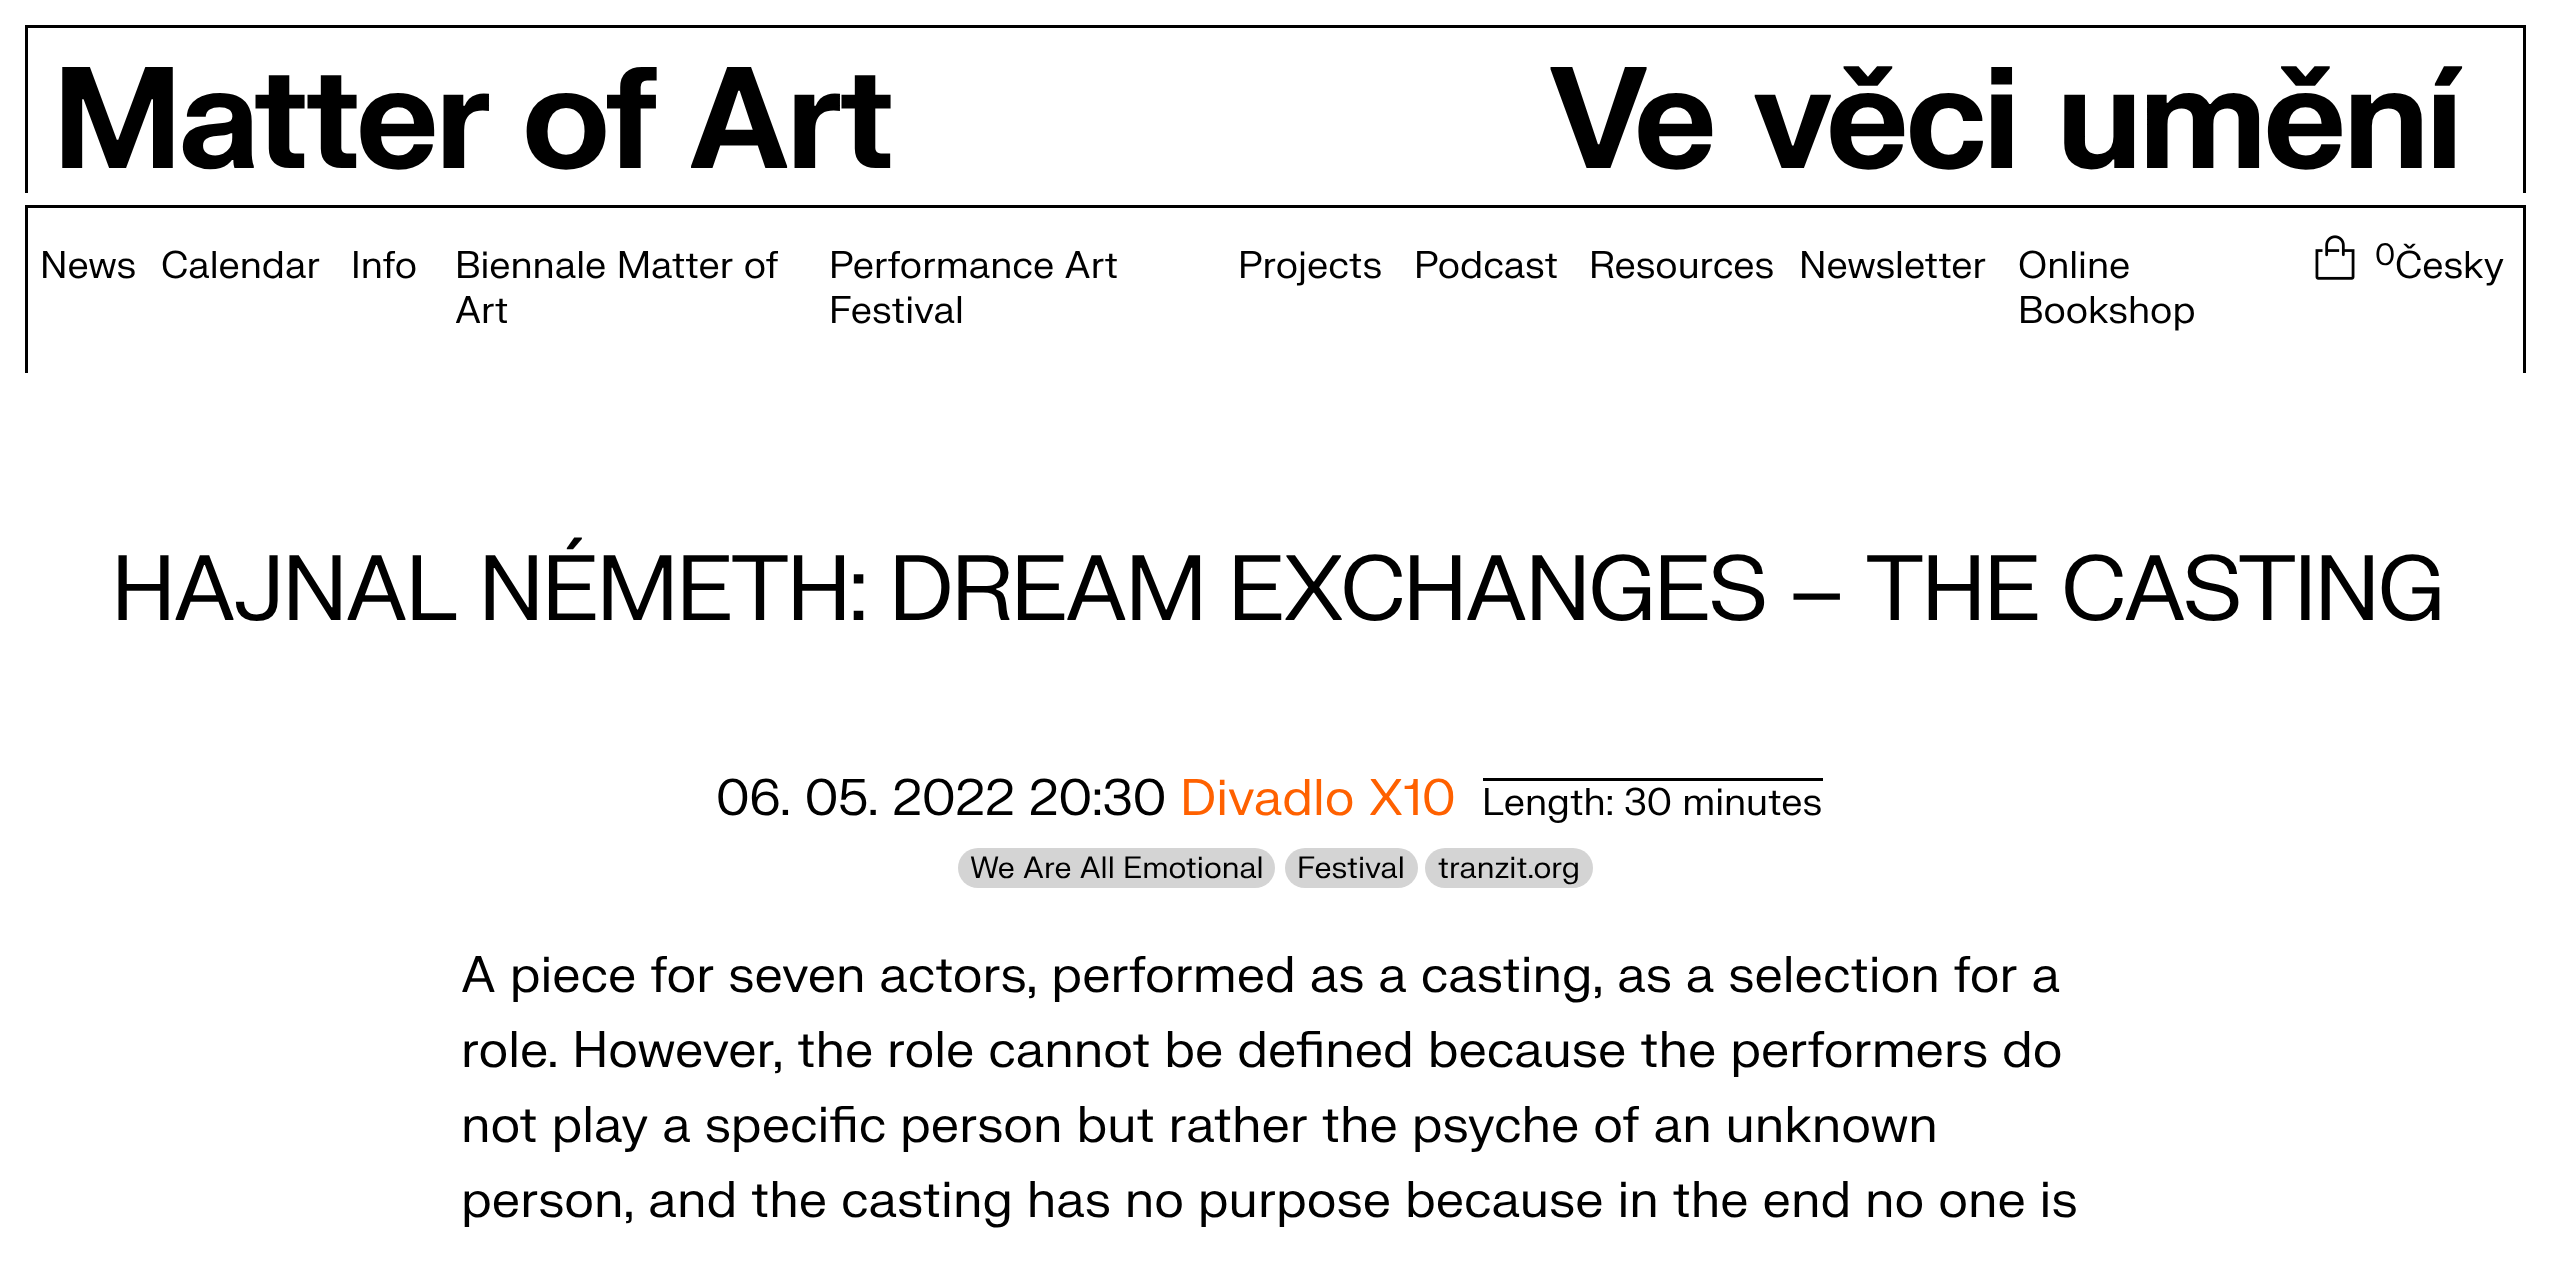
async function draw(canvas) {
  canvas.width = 2550
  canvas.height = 1264
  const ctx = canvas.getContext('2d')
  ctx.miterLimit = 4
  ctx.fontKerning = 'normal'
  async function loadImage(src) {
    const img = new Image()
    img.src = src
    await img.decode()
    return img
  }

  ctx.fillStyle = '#fff'
  ctx.fillRect(0, 0, 2550, 1264)
  ctx.fillStyle = '#000'
  ctx.fillRect(25, 25, 2500, 3)
  ctx.fillRect(2523, 25, 3, 168)
  ctx.fillRect(25, 25, 3, 168)
  ctx.letterSpacing = '-3.5px'
  ctx.font = 'bold 140.25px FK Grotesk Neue'
  ctx.fillText('Matter of Art', 53, 168)
  ctx.wordSpacing = '6px'
  ctx.fillText('Ve věci umění', 1548, 168)
  ctx.fillRect(25, 205, 2500, 3)
  ctx.fillRect(2523, 205, 3, 168)
  ctx.fillRect(25, 205, 3, 168)
  ctx.letterSpacing = '0px'
  ctx.wordSpacing = '0px'
  ctx.font = '37.5px FK Grotesk Neue'
  ctx.fillText('News', 40, 278)
  ctx.fillText('Calendar', 161, 278)
  ctx.fillText('Info', 351, 278)
  ctx.fillText('Biennale Matter of', 455, 278)
  ctx.fillText('Art', 455, 323)
  ctx.fillText('Performance Art', 829, 278)
  ctx.fillText('Festival', 829, 323)
  ctx.fillText('Projects', 1238, 278)
  ctx.fillText('Podcast', 1414, 278)
  ctx.fillText('Resources', 1589, 278)
  ctx.fillText('Newsletter', 1799, 278)
  ctx.fillText('Online', 2018, 278)
  ctx.fillText('Bookshop', 2018, 323)
  ctx.drawImage(await loadImage('image0.png'), 2315, 235, 40, 45)
  ctx.font = '30px FK Grotesk Neue'
  ctx.fillText('0', 2375, 265)
  ctx.font = '37.5px FK Grotesk Neue'
  ctx.fillText('Česky', 2395, 278)
  ctx.letterSpacing = '-2.7px'
  ctx.wordSpacing = '0.5px'
  ctx.font = '90px FK Grotesk Neue'
  ctx.fillText('HAJNAL NÉMETH: DREAM EXCHANGES – THE CASTING', 111, 620)
  ctx.letterSpacing = '0px'
  ctx.wordSpacing = '0px'
  ctx.font = '50px FK Grotesk Neue'
  ctx.fillText('06. 05. 2022 20:30', 716, 815)
  ctx.fillStyle = '#ff6100'
  ctx.fillText('Divadlo X10', 1180, 815)
  ctx.font = '37.5px FK Grotesk Neue'
  ctx.fillStyle = '#000'
  ctx.fillText('Length: 30 minutes', 1482, 815)
  ctx.fillRect(1483, 778, 340, 3)
  ctx.fillStyle = '#d4d4d4'
  ctx.beginPath()
  ctx.roundRect(958, 848, 317, 40, 20)
  ctx.fill()
  ctx.font = '30px FK Grotesk Neue'
  ctx.fillStyle = '#000'
  ctx.fillText('We Are All Emotional', 970, 878)
  ctx.fillStyle = '#d4d4d4'
  ctx.beginPath()
  ctx.roundRect(1285, 848, 133, 40, 20)
  ctx.fill()
  ctx.fillStyle = '#000'
  ctx.fillText('Festival', 1297, 878)
  ctx.fillStyle = '#d4d4d4'
  ctx.beginPath()
  ctx.roundRect(1425, 848, 168, 40, 20)
  ctx.fill()
  ctx.fillStyle = '#000'
  ctx.fillText('tranzit.org', 1438, 878)
  ctx.font = '50px FK Grotesk Neue'
  ctx.fillText('A piece for seven actors, performed as a casting, as a selection for a', 461, 992)
  ctx.fillText('role. However, the role cannot be defined because the performers do', 461, 1067)
  ctx.fillText('not play a specific person but rather the psyche of an unknown', 461, 1142)
  ctx.fillText('person, and the casting has no purpose because in the end no one is', 461, 1217)
}

draw(document.querySelector('canvas'))
